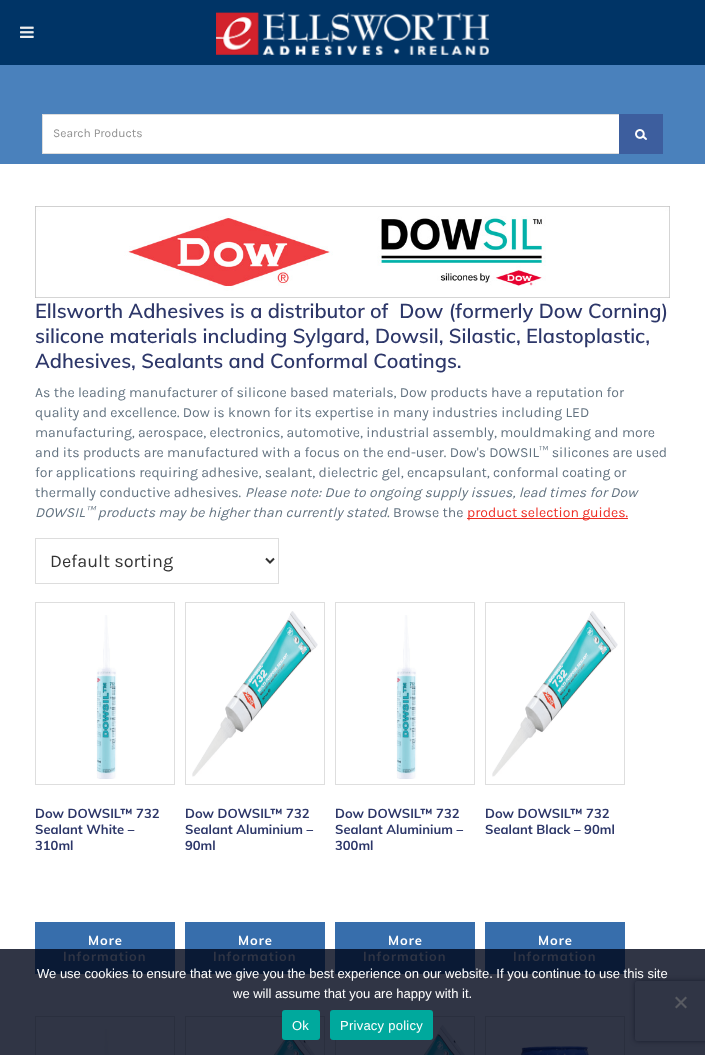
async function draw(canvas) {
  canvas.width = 705
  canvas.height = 1055
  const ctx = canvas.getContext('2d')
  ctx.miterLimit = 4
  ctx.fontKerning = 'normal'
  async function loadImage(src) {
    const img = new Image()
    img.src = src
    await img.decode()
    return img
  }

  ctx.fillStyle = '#fff'
  ctx.fillRect(0, 0, 705, 1055)
  ctx.fillStyle = '#303545'
  ctx.fillRect(0, 949, 705, 106)
  ctx.fillStyle = '#003466'
  ctx.fillRect(0, 0, 705, 65)
  ctx.drawImage(await loadImage('image0.png'), 20, 26, 14, 12)
  ctx.drawImage(await loadImage('image1.png'), 216, 12, 273, 43)
  ctx.fillStyle = '#4a81bc'
  ctx.fillRect(0, 65, 705, 99)
  ctx.fillStyle = '#fff'
  ctx.fillRect(43, 115, 576, 38)
  ctx.strokeStyle = '#ddd'
  ctx.strokeRect(42.5, 114.5, 620, 39)
  ctx.font = '12px Karla'
  ctx.fillStyle = '#919191'
  ctx.fillText('Search Products', 53, 137)
  ctx.fillStyle = '#3d5e9e'
  ctx.fillRect(619, 114, 44, 40)
  ctx.drawImage(await loadImage('image2.png'), 635, 129, 12, 11)
  ctx.drawImage(await loadImage('image3.png'), 35, 206, 635, 92)
  ctx.font = '600 20px Muli'
  ctx.fillStyle = '#2d3769'
  ctx.fillText('Ellsworth Adhesives is a distributor of  Dow (formerly Dow Corning)', 35, 318)
  ctx.fillText('silicone materials including Sylgard, Dowsil, Silastic, Elastoplastic,', 35, 343)
  ctx.fillText('Adhesives, Sealants and Conformal Coatings.', 35, 368)
  ctx.font = '14px Karla'
  ctx.fillStyle = '#637381'
  ctx.fillText('As the leading manufacturer of silicone based materials, Dow products have a reputation for', 35, 397)
  ctx.fillText('quality and excellence. Dow is known for its expertise in many industries including LED', 35, 417)
  ctx.fillText('manufacturing, aerospace, electronics, automotive, industrial assembly, mouldmaking and more', 35, 437)
  ctx.fillText('and its products are manufactured with a focus on the end-user. Dow\'s DOWSIL™ silicones are used', 35, 457)
  ctx.fillText('for applications requiring adhesive, sealant, dielectric gel, encapsulant, conformal coating or', 35, 477)
  ctx.fillText('thermally conductive adhesives.', 35, 497)
  ctx.font = 'italic 14px Karla'
  ctx.fillText('Please note: Due to ongoing supply issues, lead times for Dow', 245, 497)
  ctx.fillText('DOWSIL™ products may be higher than currently stated.', 35, 517)
  ctx.font = '14px Karla'
  ctx.fillText('Browse the', 393, 517)
  ctx.fillStyle = '#ee2d24'
  ctx.fillRect(467, 518, 161, 1)
  ctx.fillText('product selection guides.', 467, 517)
  ctx.strokeRect(35.5, 538.5, 243, 45)
  ctx.beginPath()
  ctx.moveTo(266, 558.5)
  ctx.lineTo(270, 562.5)
  ctx.lineTo(274, 558.5)
  ctx.strokeStyle = '#333'
  ctx.lineWidth = 2
  ctx.stroke()
  ctx.font = '18px Karla'
  ctx.fillStyle = '#333'
  ctx.fillText('Default sorting', 50, 567)
  ctx.strokeStyle = '#dedede'
  ctx.lineWidth = 1
  ctx.strokeRect(35.5, 602.5, 139, 182)
  ctx.drawImage(await loadImage('image4.png'), 96, 615, 21, 164)
  ctx.font = 'bold 13px Muli'
  ctx.fillStyle = '#2d3769'
  ctx.fillText('Dow DOWSIL™ 732', 35, 818)
  ctx.fillText('Sealant White –', 35, 834)
  ctx.fillText('310ml', 35, 850)
  ctx.fillStyle = '#376eac'
  ctx.fillRect(35, 922, 140, 27)
  ctx.fillStyle = '#0a1a35'
  ctx.fillRect(35, 949, 140, 25)
  ctx.letterSpacing = '1px'
  ctx.fillStyle = '#fff'
  ctx.fillText('More', 88, 945)
  ctx.fillStyle = '#303545'
  ctx.fillText('Information', 63, 961)
  ctx.strokeRect(185.5, 602.5, 139, 182)
  ctx.drawImage(await loadImage('image5.png'), 192, 611, 126, 166)
  ctx.letterSpacing = '0px'
  ctx.fillStyle = '#2d3769'
  ctx.fillText('Dow DOWSIL™ 732', 185, 818)
  ctx.fillText('Sealant Aluminium –', 185, 834)
  ctx.fillText('90ml', 185, 850)
  ctx.fillStyle = '#376eac'
  ctx.fillRect(185, 922, 140, 27)
  ctx.fillStyle = '#0a1a35'
  ctx.fillRect(185, 949, 140, 25)
  ctx.letterSpacing = '1px'
  ctx.fillStyle = '#fff'
  ctx.fillText('More', 238, 945)
  ctx.fillStyle = '#303545'
  ctx.fillText('Information', 213, 961)
  ctx.strokeRect(335.5, 602.5, 139, 182)
  ctx.drawImage(await loadImage('image4.png'), 396, 615, 21, 164)
  ctx.letterSpacing = '0px'
  ctx.fillStyle = '#2d3769'
  ctx.fillText('Dow DOWSIL™ 732', 335, 818)
  ctx.fillText('Sealant Aluminium –', 335, 834)
  ctx.fillText('300ml', 335, 850)
  ctx.fillStyle = '#376eac'
  ctx.fillRect(335, 922, 140, 27)
  ctx.fillStyle = '#0a1a35'
  ctx.fillRect(335, 949, 140, 25)
  ctx.letterSpacing = '1px'
  ctx.fillStyle = '#fff'
  ctx.fillText('More', 388, 945)
  ctx.fillStyle = '#303545'
  ctx.fillText('Information', 363, 961)
  ctx.strokeRect(485.5, 602.5, 139, 182)
  ctx.drawImage(await loadImage('image5.png'), 492, 611, 126, 166)
  ctx.letterSpacing = '0px'
  ctx.fillStyle = '#2d3769'
  ctx.fillText('Dow DOWSIL™ 732', 485, 818)
  ctx.fillText('Sealant Black – 90ml', 485, 834)
  ctx.fillStyle = '#376eac'
  ctx.fillRect(485, 922, 140, 27)
  ctx.fillStyle = '#0a1a35'
  ctx.fillRect(485, 949, 140, 25)
  ctx.letterSpacing = '1px'
  ctx.fillStyle = '#fff'
  ctx.fillText('More', 538, 945)
  ctx.fillStyle = '#303545'
  ctx.fillText('Information', 513, 961)
  ctx.strokeStyle = '#2a2f3e'
  ctx.strokeRect(35.5, 1016.5, 139, 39)
  ctx.drawImage(await loadImage('image6.png'), 104, 1029, 5, 26)
  ctx.strokeRect(185.5, 1016.5, 139, 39)
  ctx.drawImage(await loadImage('image7.png'), 274, 1025, 41, 30)
  ctx.strokeRect(335.5, 1016.5, 139, 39)
  ctx.drawImage(await loadImage('image7.png'), 424, 1025, 41, 30)
  ctx.strokeRect(485.5, 1016.5, 139, 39)
  ctx.drawImage(await loadImage('image8.png'), 520, 1046, 69, 9)
  ctx.save()
  ctx.beginPath()
  ctx.moveTo(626, 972)
  ctx.lineTo(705, 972)
  ctx.lineTo(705, 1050)
  ctx.lineTo(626, 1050)
  ctx.closePath()
  ctx.moveTo(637, 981)
  ctx.lineTo(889, 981)
  ctx.bezierCurveTo(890, 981, 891, 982, 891, 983)
  ctx.lineTo(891, 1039)
  ctx.bezierCurveTo(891, 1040, 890, 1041, 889, 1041)
  ctx.lineTo(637, 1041)
  ctx.bezierCurveTo(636, 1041, 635, 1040, 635, 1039)
  ctx.lineTo(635, 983)
  ctx.bezierCurveTo(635, 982, 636, 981, 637, 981)
  ctx.closePath()
  ctx.clip('evenodd')
  ctx.fillStyle = '#181d2d'
  ctx.filter = 'blur(2.5px)'
  ctx.beginPath()
  ctx.roundRect(635, 981, 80, 60, 2)
  ctx.fill()
  ctx.filter = 'none'
  ctx.restore()
  ctx.letterSpacing = '0px'
  ctx.font = '13px Liberation Sans'
  ctx.fillStyle = '#fff'
  ctx.fillText('We use cookies to ensure that we give you the best experience on our website. If you continue to use this site', 37, 978)
  ctx.fillText('we will assume that you are happy with it.', 233, 998)
  ctx.fillStyle = '#585b62'
  ctx.beginPath()
  ctx.moveTo(685.5, 996.5)
  ctx.lineTo(687, 998)
  ctx.lineTo(676.5, 1008.5)
  ctx.lineTo(675, 1007)
  ctx.closePath()
  ctx.fill()
  ctx.beginPath()
  ctx.moveTo(675, 998)
  ctx.lineTo(676.5, 996.5)
  ctx.lineTo(687, 1007)
  ctx.lineTo(685.5, 1008.5)
  ctx.closePath()
  ctx.fill()
  ctx.fillStyle = '#00a99d'
  ctx.beginPath()
  ctx.roundRect(282, 1010, 38, 30, 3)
  ctx.fill()
  ctx.letterSpacing = '0.25px'
  ctx.fillStyle = '#fff'
  ctx.fillText('Ok', 292, 1030)
  ctx.fillStyle = '#00a99d'
  ctx.beginPath()
  ctx.roundRect(330, 1010, 103, 30, 3)
  ctx.fill()
  ctx.fillStyle = '#fff'
  ctx.fillText('Privacy policy', 340, 1030)
}

draw(document.querySelector('canvas'))
